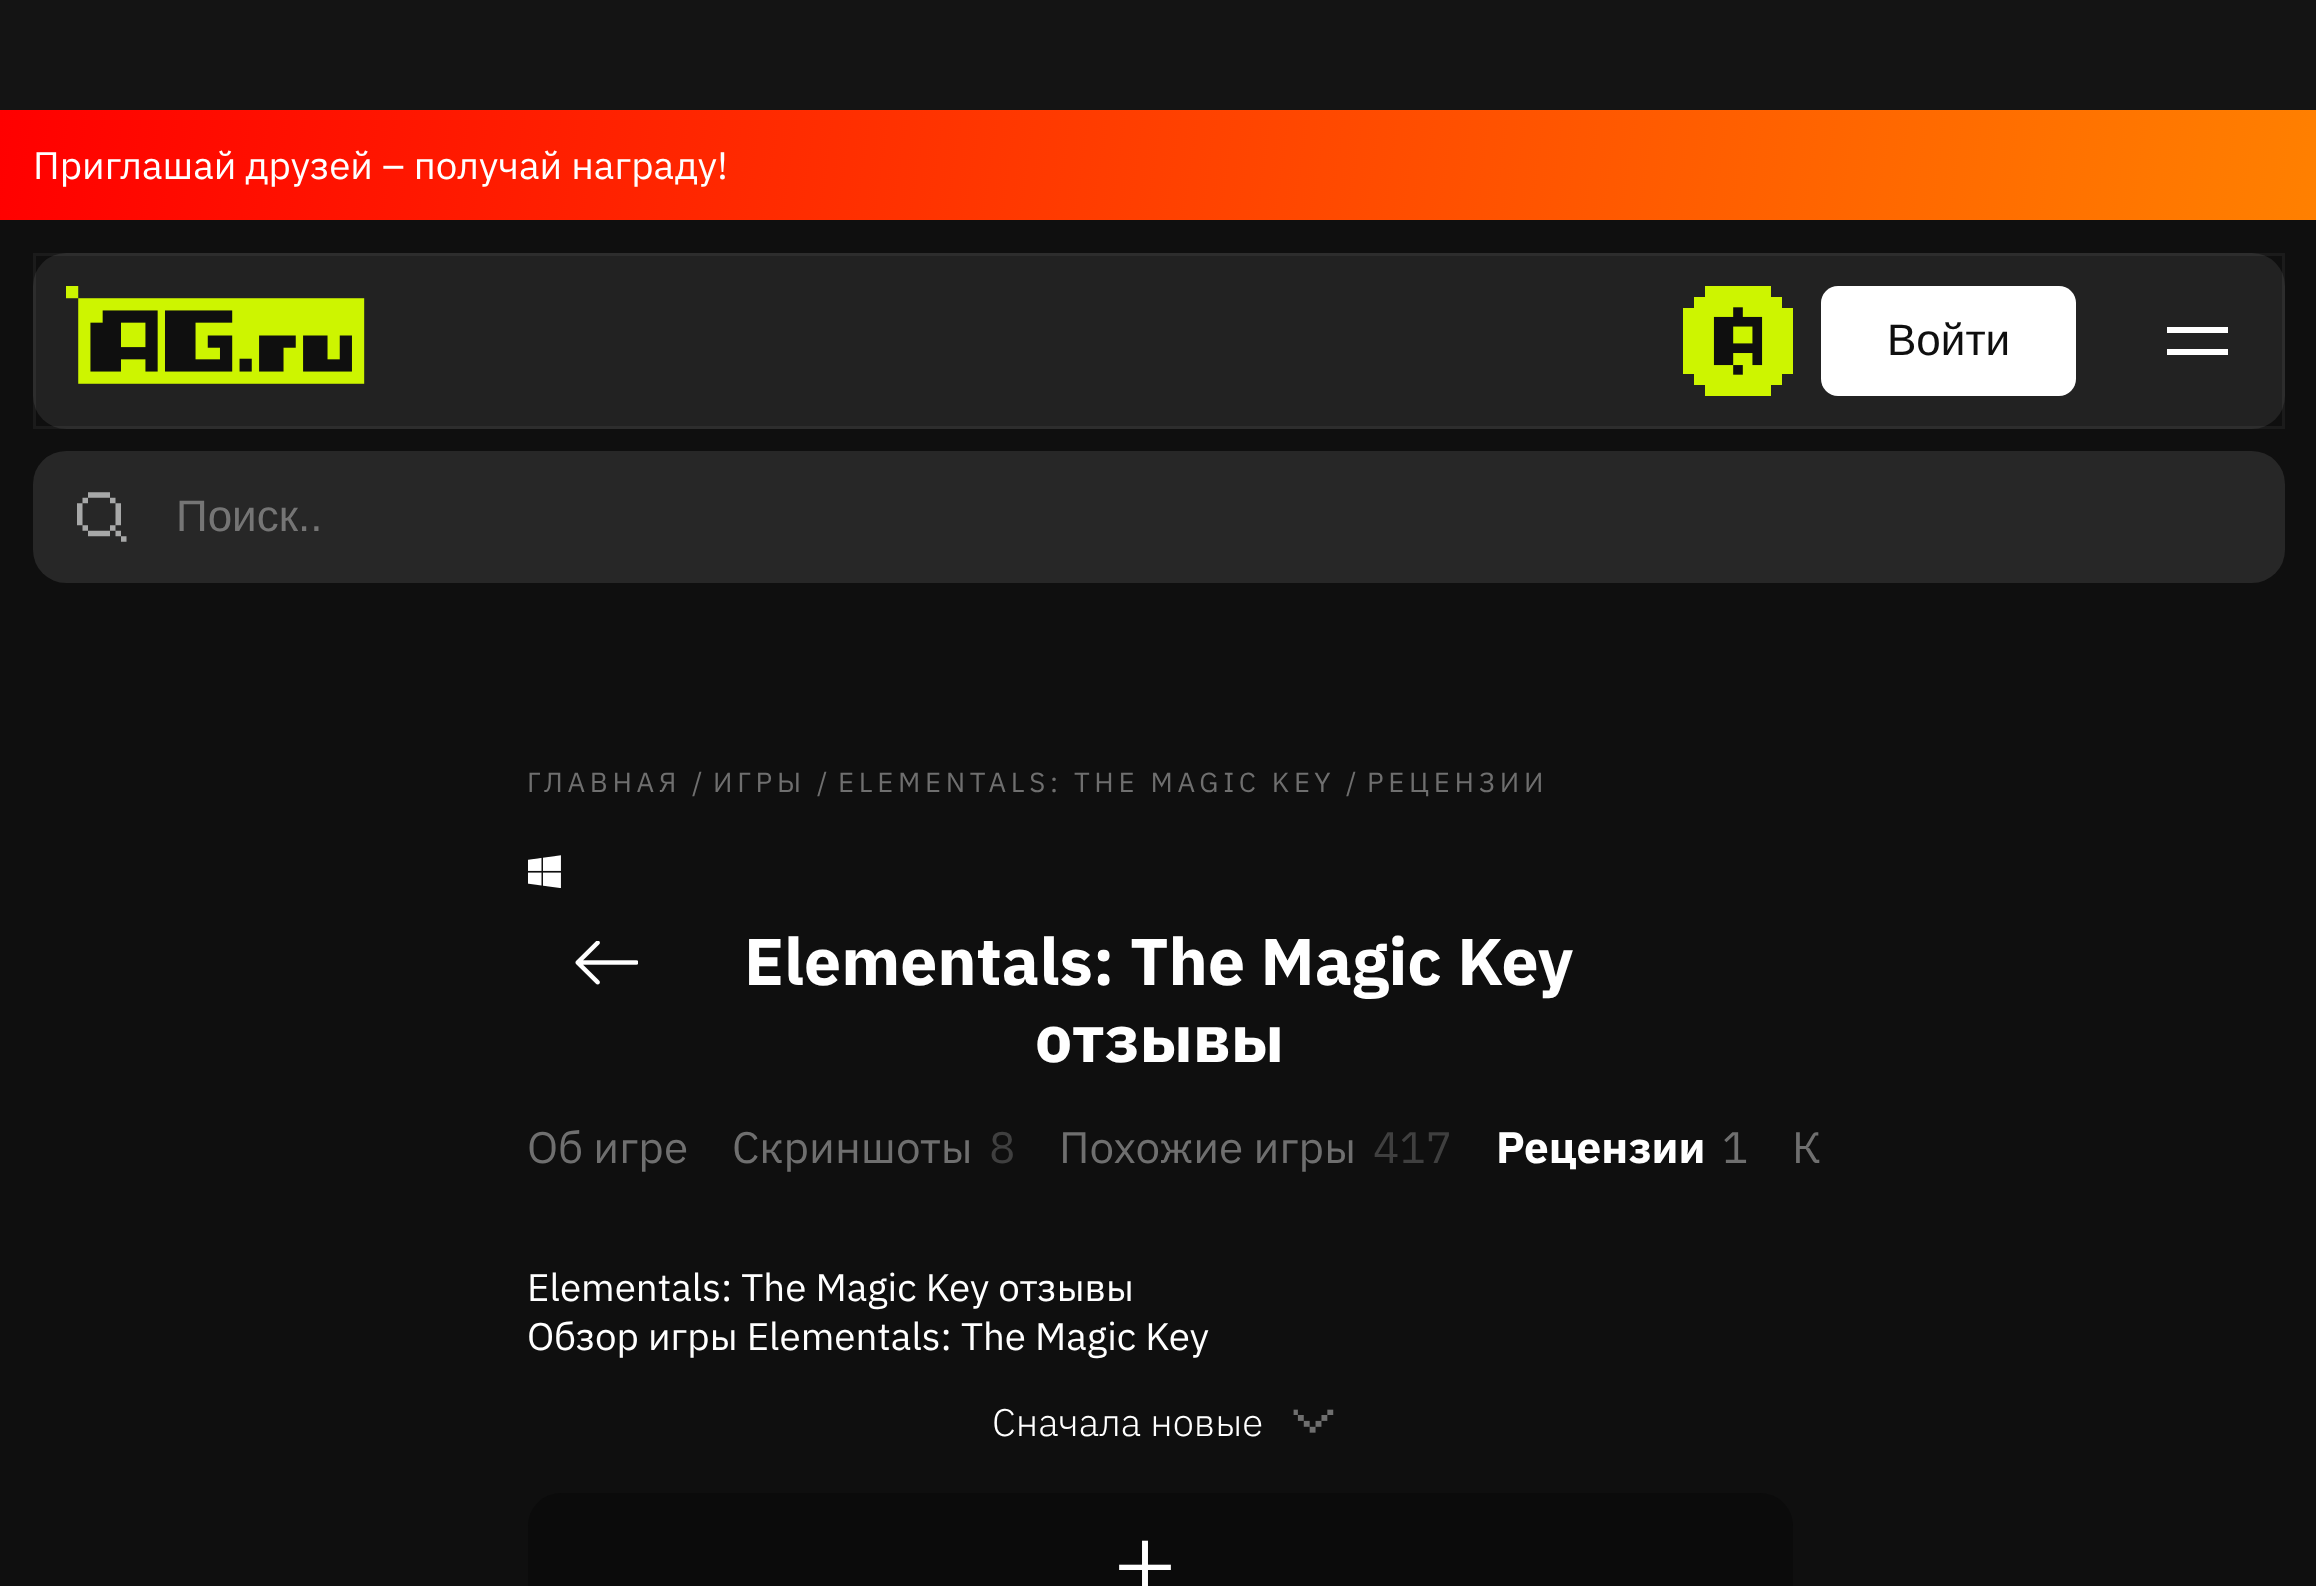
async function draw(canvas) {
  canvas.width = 2316
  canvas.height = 1586
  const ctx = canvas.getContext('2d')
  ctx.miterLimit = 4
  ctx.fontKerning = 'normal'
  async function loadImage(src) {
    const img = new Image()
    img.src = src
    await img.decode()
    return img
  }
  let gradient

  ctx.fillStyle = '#0f0f0f'
  ctx.fillRect(0, 0, 2316, 1586)
  ctx.fillStyle = '#141414'
  ctx.fillRect(0, 0, 2316, 110)
  gradient = ctx.createLinearGradient(15, 4.2, 2303, 326)
  gradient.addColorStop(0, '#f00')
  gradient.addColorStop(1, '#ff8000')
  ctx.fillStyle = gradient
  ctx.fillRect(0, 110, 2316, 110)
  ctx.font = '38.5px IBM Plex Sans'
  ctx.fillStyle = '#fff'
  ctx.fillText('Приглашай друзей – получай награду!', 33, 179)
  ctx.fillStyle = '#222'
  ctx.beginPath()
  ctx.roundRect(33, 253, 2252, 176, 33)
  ctx.fill()
  ctx.strokeStyle = '#ffffff0d'
  ctx.lineWidth = 3
  ctx.strokeRect(34.5, 254.5, 2249, 173)
  ctx.drawImage(await loadImage('image0.png'), 66, 286, 299, 98)
  ctx.drawImage(await loadImage('image1.png'), 1683, 286, 110, 110)
  ctx.fillStyle = '#fff'
  ctx.beginPath()
  ctx.roundRect(1821, 286, 255, 110, 17)
  ctx.fill()
  ctx.font = '44px Liberation Sans'
  ctx.fillStyle = '#0f0f0f'
  ctx.fillText('Войти', 1887, 355)
  ctx.fillStyle = '#fff'
  ctx.beginPath()
  ctx.moveTo(2228, 333)
  ctx.lineTo(2228, 327)
  ctx.lineTo(2167, 327)
  ctx.lineTo(2167, 333)
  ctx.closePath()
  ctx.moveTo(2228, 355)
  ctx.lineTo(2228, 349)
  ctx.lineTo(2167, 349)
  ctx.lineTo(2167, 355)
  ctx.closePath()
  ctx.fill('evenodd')
  ctx.fillStyle = '#272727'
  ctx.beginPath()
  ctx.roundRect(33, 451, 2252, 132, 33)
  ctx.fill()
  ctx.drawImage(await loadImage('image2.png'), 77, 492, 50, 50)
  ctx.fillStyle = '#757575'
  ctx.fillText('Поиск..', 176, 531)
  ctx.letterSpacing = '4.7px'
  ctx.font = '27.5px IBM Plex Sans'
  ctx.fillStyle = '#6f6f6f'
  ctx.fillText('ГЛАВНАЯ', 527, 792)
  ctx.letterSpacing = '0px'
  ctx.fillText('/', 692, 792)
  ctx.letterSpacing = '4.7px'
  ctx.fillText('ИГРЫ', 713, 792)
  ctx.letterSpacing = '0px'
  ctx.fillText('/', 817, 792)
  ctx.letterSpacing = '4.7px'
  ctx.fillText('ELEMENTALS: THE MAGIC KEY', 838, 792)
  ctx.letterSpacing = '0px'
  ctx.fillText('/', 1346, 792)
  ctx.letterSpacing = '4.7px'
  ctx.fillText('РЕЦЕНЗИИ', 1367, 792)
  ctx.drawImage(await loadImage('image3.png'), 528, 855, 33, 33)
  ctx.drawImage(await loadImage('image4.png'), 575, 941, 63, 44)
  ctx.letterSpacing = '0px'
  ctx.font = 'bold 66px IBM Plex Sans'
  ctx.fillStyle = '#fff'
  ctx.fillText('Elementals: The Magic Key', 744, 985)
  ctx.fillText('отзывы', 1035, 1062)
  ctx.font = '44px IBM Plex Sans'
  ctx.fillStyle = '#6f6f6f'
  ctx.fillText('Об игре', 527, 1163)
  ctx.fillText('Скриншоты', 732, 1163)
  ctx.fillStyle = '#3f3f3f'
  ctx.fillText('8', 989, 1163)
  ctx.fillStyle = '#6f6f6f'
  ctx.fillText('Похожие игры', 1059, 1163)
  ctx.fillStyle = '#3f3f3f'
  ctx.fillText('417', 1373, 1163)
  ctx.font = 'bold 44px IBM Plex Sans'
  ctx.fillStyle = '#fff'
  ctx.fillText('Рецензии', 1496, 1163)
  ctx.font = '44px IBM Plex Sans'
  ctx.fillStyle = '#6f6f6f'
  ctx.fillText('1', 1722, 1163)
  ctx.fillText('К', 1792, 1163)
  ctx.font = '38.5px IBM Plex Sans'
  ctx.fillStyle = '#fff'
  ctx.fillText('Elementals: The Magic Key отзывы', 527, 1301)
  ctx.fillText('Обзор игры Elementals: The Magic Key', 527, 1350)
  ctx.font = '300 38.5px IBM Plex Sans'
  ctx.fillText('Сначала новые', 992, 1436)
  ctx.drawImage(await loadImage('image5.png'), 1293, 1409, 41, 24)
  ctx.fillStyle = '#0b0b0b'
  ctx.beginPath()
  ctx.roundRect(528, 1493, 1265, 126, 33)
  ctx.fill()
  ctx.font = '300 110px IBM Plex Sans'
  ctx.fillStyle = '#fff'
  ctx.fillText('+', 1112, 1601)
}

draw(document.querySelector('canvas'))
